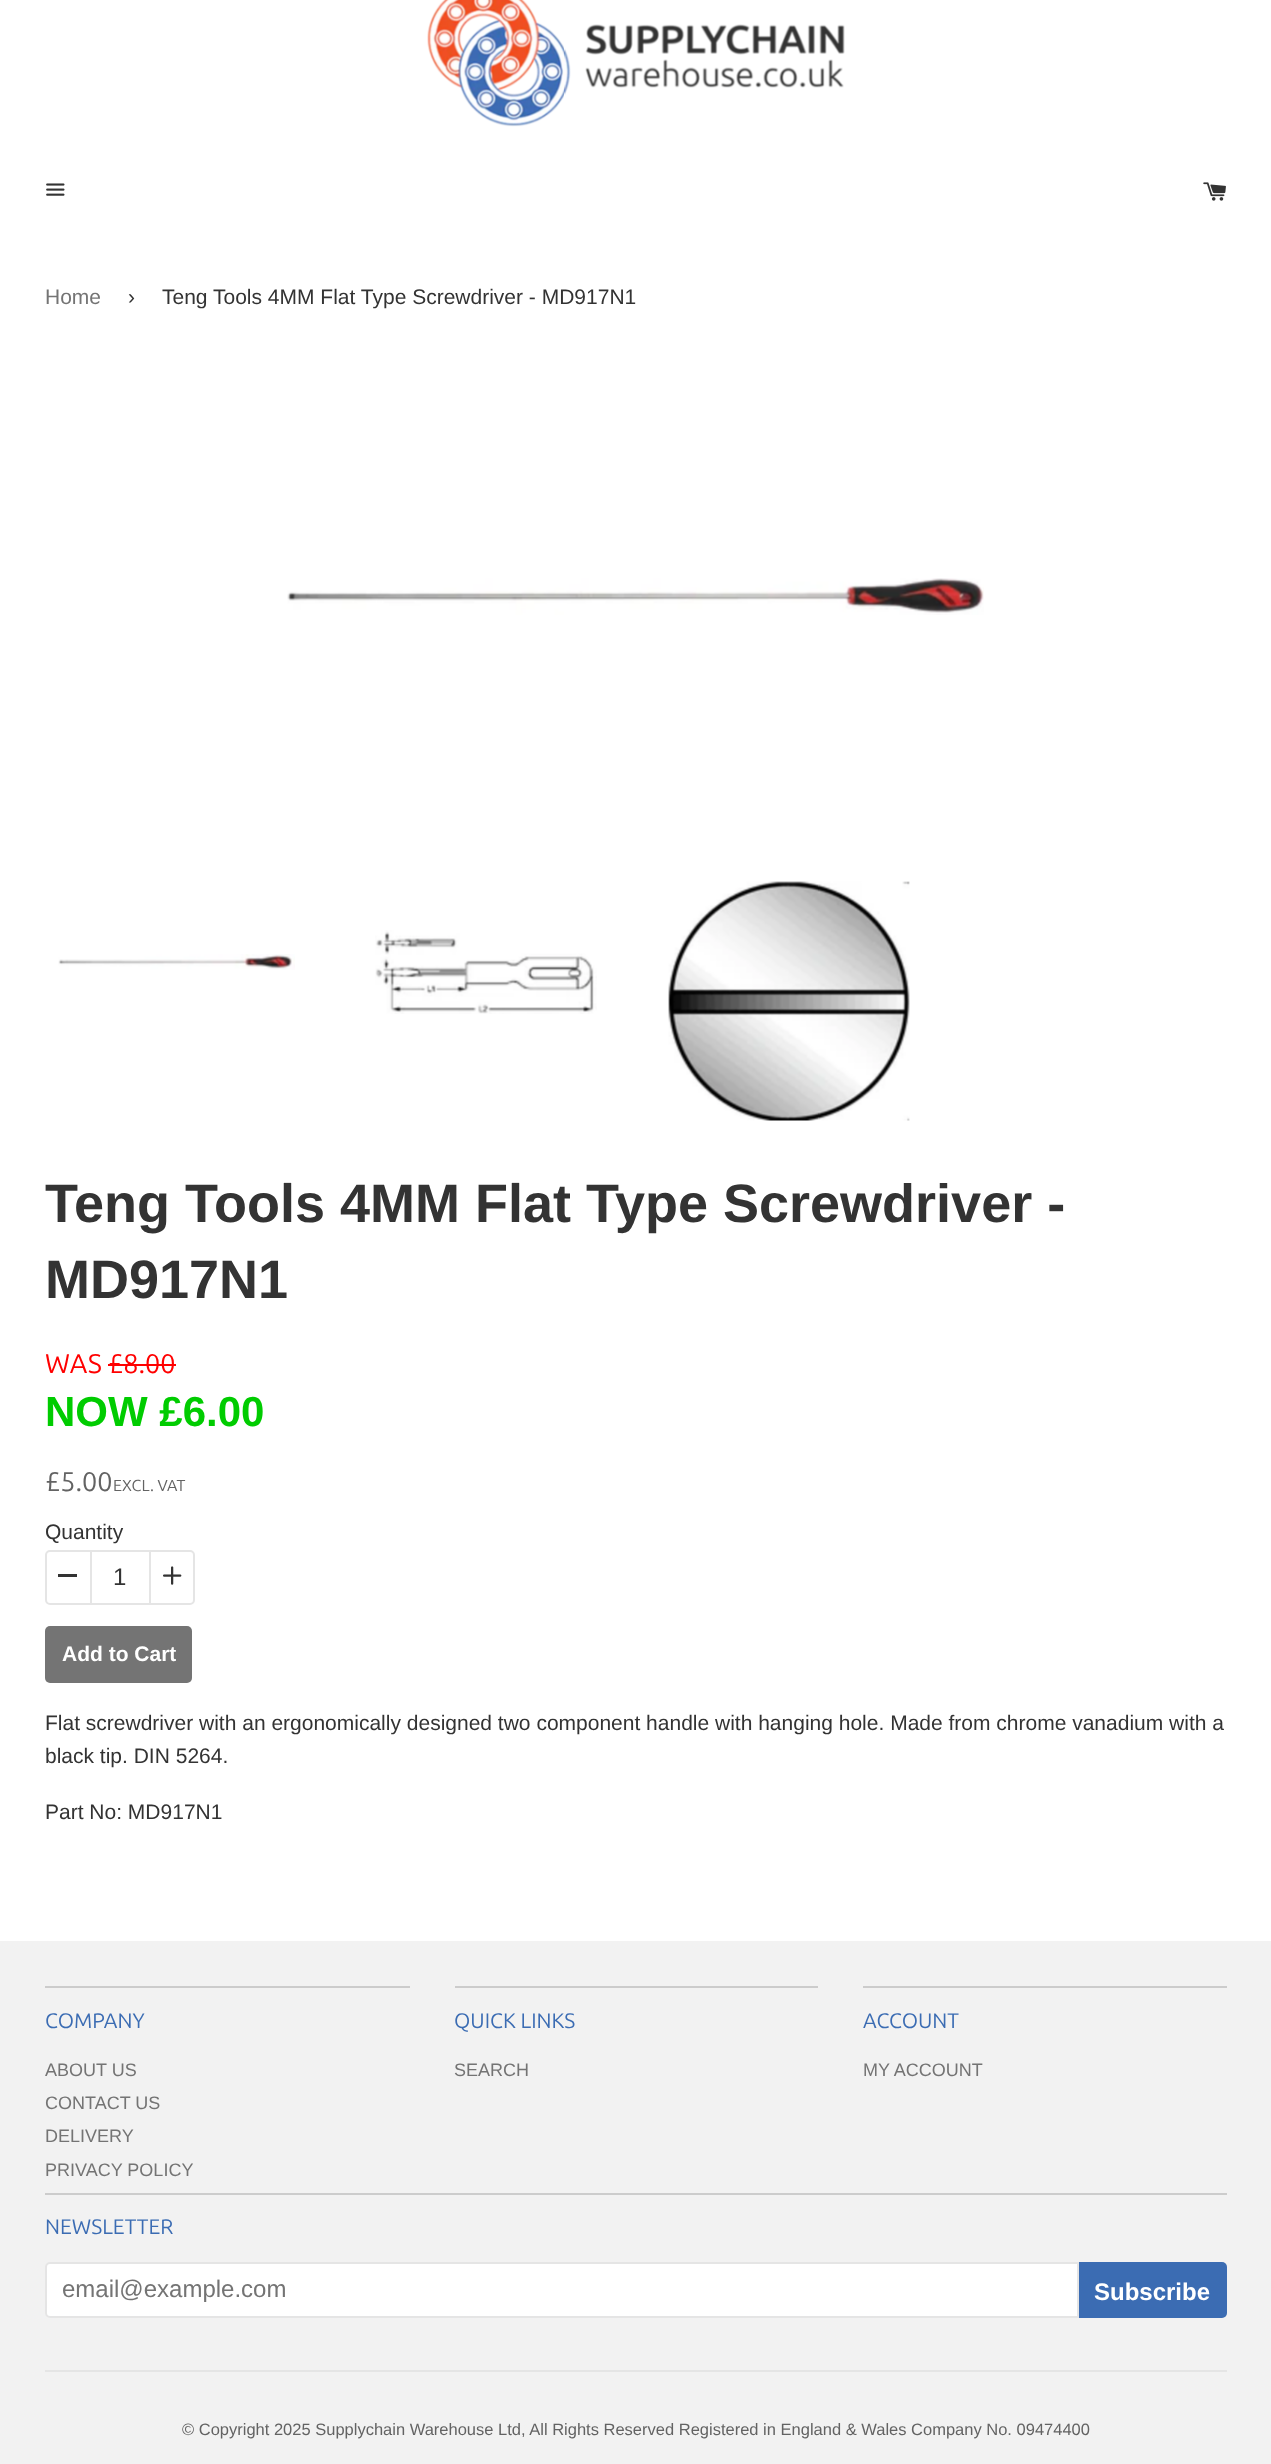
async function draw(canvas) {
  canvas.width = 1271
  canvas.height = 2464
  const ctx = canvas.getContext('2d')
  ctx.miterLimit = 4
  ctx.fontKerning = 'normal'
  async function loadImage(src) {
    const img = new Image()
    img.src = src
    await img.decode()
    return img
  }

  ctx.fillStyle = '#fff'
  ctx.fillRect(0, 0, 1271, 2464)
  ctx.drawImage(await loadImage('image0.png'), 427, 0, 418, 127)
  ctx.drawImage(await loadImage('image1.png'), 46, 183, 19, 13)
  ctx.drawImage(await loadImage('image2.png'), 1203, 182, 23, 19)
  ctx.font = '21px Liberation Sans'
  ctx.fillStyle = '#747474'
  ctx.fillText('Home', 45, 304)
  ctx.fillStyle = '#333'
  ctx.fillText('›', 128, 304)
  ctx.fillText('Teng Tools 4MM Flat Type Screwdriver - MD917N1', 162, 304)
  ctx.drawImage(await loadImage('image3.png'), 287, 578, 697, 37)
  ctx.drawImage(await loadImage('image4.png'), 58, 954, 237, 16)
  ctx.drawImage(await loadImage('image5.png'), 375, 930, 222, 84)
  ctx.drawImage(await loadImage('image6.png'), 668, 881, 242, 240)
  ctx.font = 'bold 54px Liberation Sans'
  ctx.fillText('Teng Tools 4MM Flat Type Screwdriver -', 45, 1222)
  ctx.fillText('MD917N1', 45, 1298)
  ctx.font = '27px Ubuntu'
  ctx.fillStyle = '#f00'
  ctx.fillText('WAS £8.00', 45, 1373)
  ctx.fillRect(108, 1364, 68, 2)
  ctx.font = 'bold 42px Liberation Sans'
  ctx.fillStyle = '#0c0'
  ctx.fillText('NOW £6.00', 45, 1426)
  ctx.font = '27px Ubuntu'
  ctx.fillStyle = '#636363'
  ctx.fillText('£5.00', 45, 1491)
  ctx.font = '16px Ubuntu'
  ctx.fillText('EXCL. VAT', 113, 1491)
  ctx.font = '21px Liberation Sans'
  ctx.fillStyle = '#333'
  ctx.fillText('Quantity', 45, 1539)
  ctx.beginPath()
  ctx.roundRect(46, 1551, 148, 53, 4)
  ctx.strokeStyle = '#e5e5e5'
  ctx.lineWidth = 2
  ctx.stroke()
  ctx.fillStyle = '#e5e5e5'
  ctx.fillRect(90, 1550, 2, 55)
  ctx.fillStyle = '#333'
  ctx.fillRect(58, 1574, 19, 3)
  ctx.font = '24px Liberation Sans'
  ctx.fillText('1', 113, 1585)
  ctx.fillStyle = '#e5e5e5'
  ctx.fillRect(149, 1550, 2, 55)
  ctx.drawImage(await loadImage('image7.png'), 163, 1566, 19, 19)
  ctx.fillStyle = '#747474'
  ctx.beginPath()
  ctx.roundRect(45, 1626, 147, 57, 5)
  ctx.fill()
  ctx.font = 'bold 21px Liberation Sans'
  ctx.fillStyle = '#fff'
  ctx.fillText('Add to Cart', 62, 1661)
  ctx.font = '21px Liberation Sans'
  ctx.fillStyle = '#333'
  ctx.fillText('Flat screwdriver with an ergonomically designed two component handle with hanging hole. Made from chrome vanadium with a', 45, 1730)
  ctx.fillText('black tip. DIN 5264.', 45, 1763)
  ctx.fillText('Part No: MD917N1', 45, 1819)
  ctx.fillStyle = '#f2f2f2'
  ctx.fillRect(0, 1941, 1271, 523)
  ctx.fillStyle = '#ccc'
  ctx.fillRect(45, 1986, 365, 2)
  ctx.font = '21px Ubuntu'
  ctx.fillStyle = '#3b6cb3'
  ctx.fillText('COMPANY', 45, 2028)
  ctx.font = '18px Liberation Sans'
  ctx.fillStyle = '#747474'
  ctx.fillText('ABOUT US', 45, 2076)
  ctx.fillText('CONTACT US', 45, 2109)
  ctx.fillText('DELIVERY', 45, 2142)
  ctx.fillText('PRIVACY POLICY', 45, 2176)
  ctx.fillStyle = '#ccc'
  ctx.fillRect(455, 1986, 363, 2)
  ctx.font = '21px Ubuntu'
  ctx.fillStyle = '#3b6cb3'
  ctx.fillText('QUICK LINKS', 454, 2028)
  ctx.font = '18px Liberation Sans'
  ctx.fillStyle = '#747474'
  ctx.fillText('SEARCH', 454, 2076)
  ctx.fillStyle = '#ccc'
  ctx.fillRect(863, 1986, 364, 2)
  ctx.font = '21px Ubuntu'
  ctx.fillStyle = '#3b6cb3'
  ctx.fillText('ACCOUNT', 863, 2028)
  ctx.font = '18px Liberation Sans'
  ctx.fillStyle = '#747474'
  ctx.fillText('MY ACCOUNT', 863, 2076)
  ctx.fillStyle = '#ccc'
  ctx.fillRect(45, 2193, 1182, 2)
  ctx.font = '21px Ubuntu'
  ctx.fillStyle = '#3b6cb3'
  ctx.fillText('NEWSLETTER', 45, 2234)
  ctx.fillStyle = '#fff'
  ctx.beginPath()
  ctx.roundRect(46, 2263, 1032, 54, [4, 0, 0, 4])
  ctx.fill()
  ctx.stroke()
  ctx.font = '24px Liberation Sans'
  ctx.fillStyle = '#747474'
  ctx.fillText('email@example.com', 62, 2297)
  ctx.fillStyle = '#3b6cb3'
  ctx.beginPath()
  ctx.roundRect(1079, 2262, 148, 56, [0, 5, 5, 0])
  ctx.fill()
  ctx.font = 'bold 24px Liberation Sans'
  ctx.fillStyle = '#fff'
  ctx.fillText('Subscribe', 1094, 2300)
  ctx.fillStyle = '#e5e5e5'
  ctx.fillRect(45, 2370, 1182, 2)
  ctx.font = '16.5px Liberation Sans'
  ctx.fillStyle = '#636363'
  ctx.fillText('© Copyright 2025 Supplychain Warehouse Ltd, All Rights Reserved Registered in England & Wales Company No. 09474400', 182, 2435)
}

draw(document.querySelector('canvas'))
